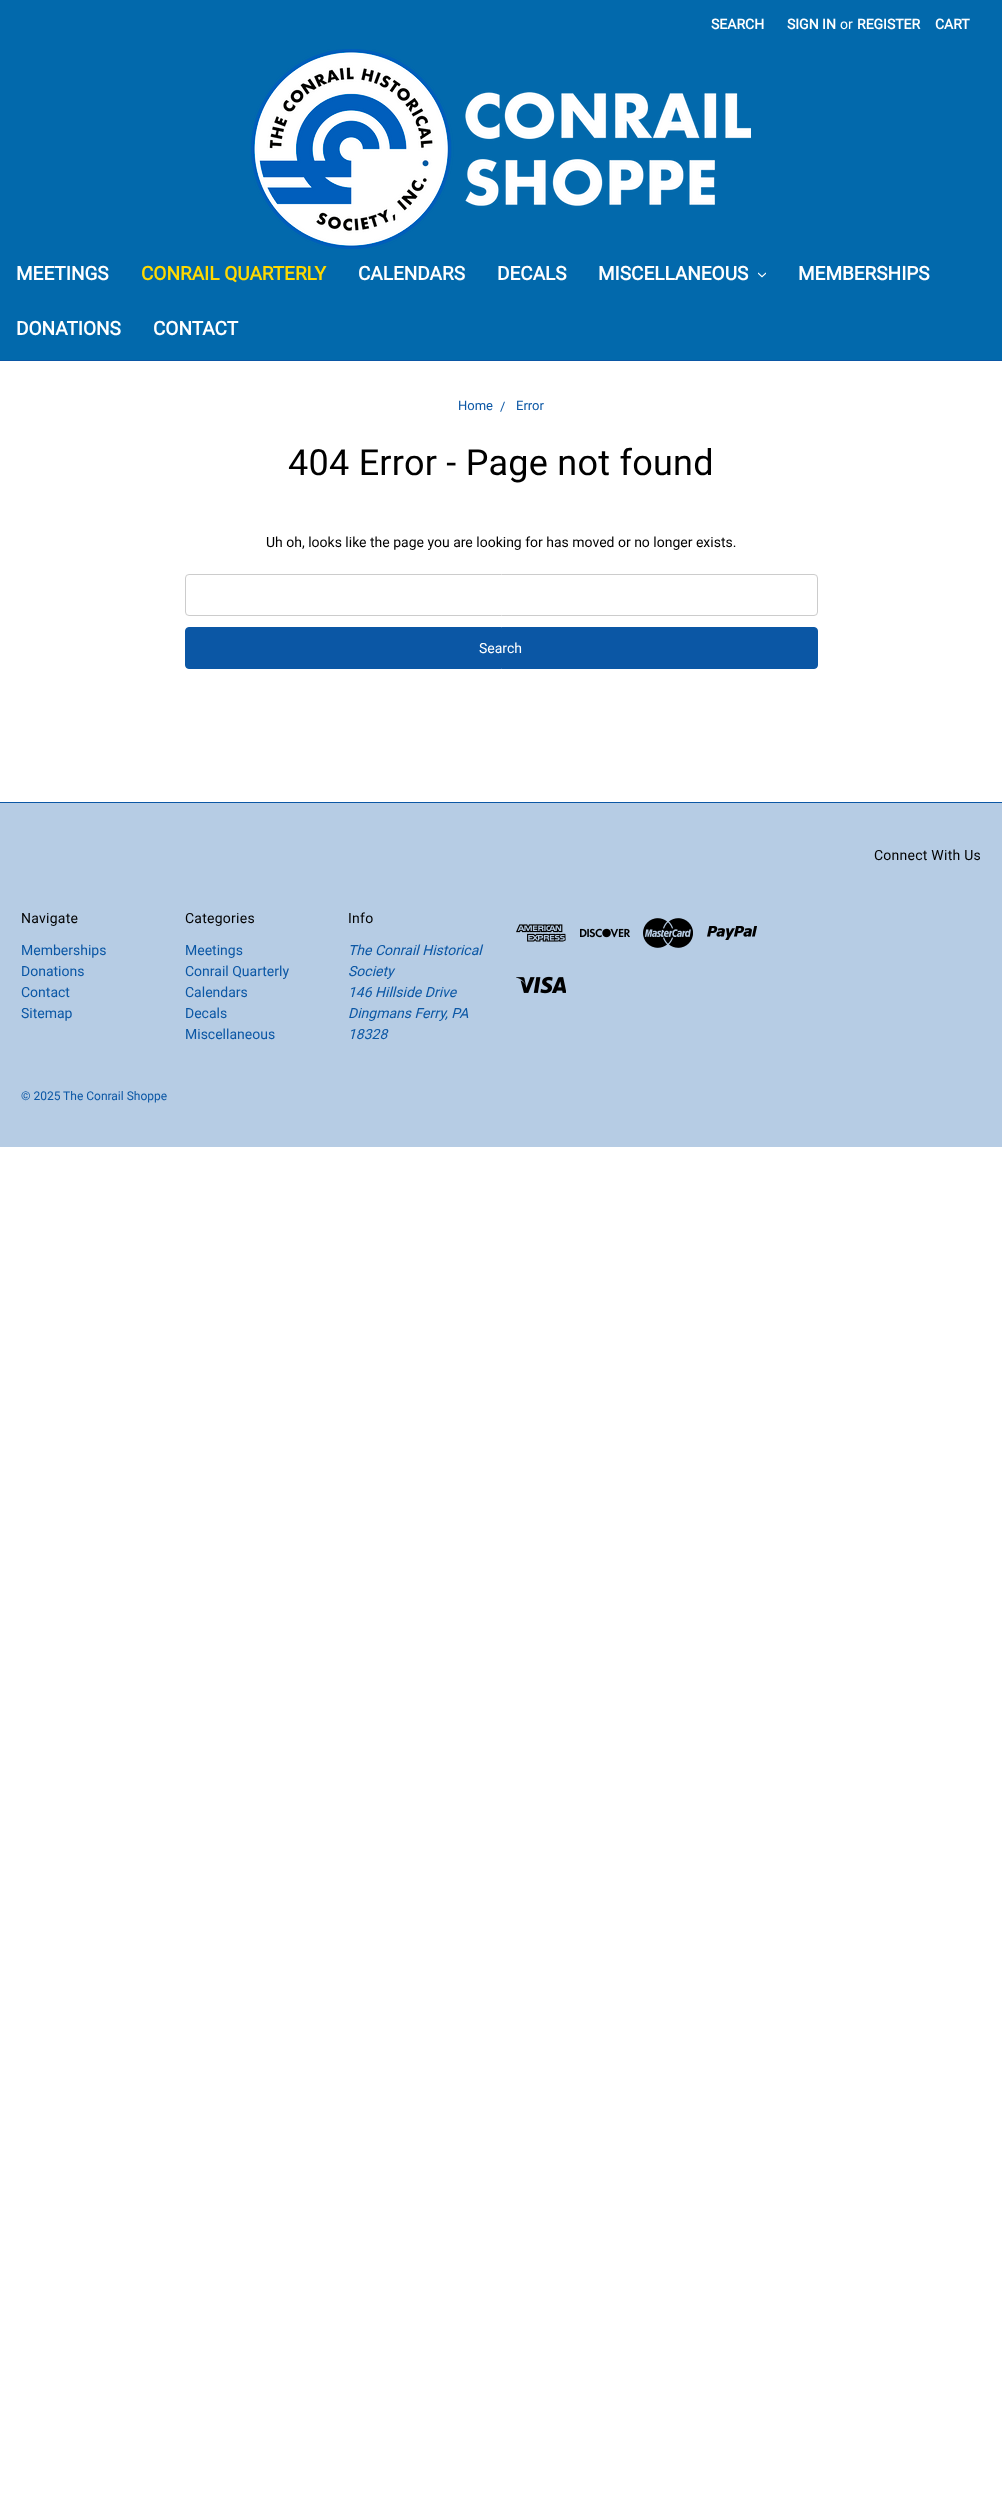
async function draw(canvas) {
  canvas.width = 1002
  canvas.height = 2513
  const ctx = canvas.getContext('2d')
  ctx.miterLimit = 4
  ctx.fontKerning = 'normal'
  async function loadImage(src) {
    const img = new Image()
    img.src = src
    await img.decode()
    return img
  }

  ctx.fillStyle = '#fff'
  ctx.fillRect(0, 0, 1002, 2513)
  ctx.fillStyle = '#0269ac'
  ctx.fillRect(0, 0, 1002, 360)
  ctx.fillStyle = '#0b57a5'
  ctx.fillRect(0, 360, 1002, 1)
  ctx.font = 'bold 14px Roboto'
  ctx.fillStyle = '#fff'
  ctx.fillText('SEARCH', 711, 29)
  ctx.fillText('SIGN IN', 787, 29)
  ctx.font = '14px Roboto'
  ctx.fillText('or', 840, 29)
  ctx.font = 'bold 14px Roboto'
  ctx.fillText('REGISTER', 857, 29)
  ctx.fillText('CART', 935, 29)
  ctx.drawImage(await loadImage('image0.png'), 251, 49, 500, 200)
  ctx.font = 'bold 19px Roboto'
  ctx.fillText('MEETINGS', 16, 280)
  ctx.fillStyle = '#ffd900'
  ctx.fillText('CONRAIL QUARTERLY', 141, 280)
  ctx.fillStyle = '#fff'
  ctx.fillText('CALENDARS', 358, 280)
  ctx.fillText('DECALS', 497, 280)
  ctx.fillText('MISCELLANEOUS', 598, 280)
  ctx.drawImage(await loadImage('image1.png'), 758, 272, 8, 6)
  ctx.fillText('MEMBERSHIPS', 798, 280)
  ctx.fillText('DONATIONS', 16, 335)
  ctx.fillText('CONTACT', 153, 335)
  ctx.font = '13px Roboto'
  ctx.fillStyle = '#0b57a5'
  ctx.fillText('Home', 458, 410)
  ctx.fillText('/', 500, 411)
  ctx.fillText('Error', 516, 410)
  ctx.letterSpacing = '0.25px'
  ctx.font = '36px Roboto'
  ctx.fillStyle = '#000'
  ctx.fillText('404 Error - Page not found', 288, 475)
  ctx.letterSpacing = '0px'
  ctx.font = '14px Roboto'
  ctx.fillText('Uh oh, looks like the page you are looking for has moved or no longer exists.', 266, 547)
  ctx.beginPath()
  ctx.roundRect(185.5, 574.5, 632, 41, 3.5)
  ctx.strokeStyle = '#ccc'
  ctx.stroke()
  ctx.fillStyle = '#0b57a5'
  ctx.beginPath()
  ctx.roundRect(185.5, 627.5, 632, 41, 3.5)
  ctx.fill()
  ctx.strokeStyle = '#0b57a5'
  ctx.stroke()
  ctx.fillStyle = '#fff'
  ctx.fillText('Search', 479, 653)
  ctx.fillStyle = '#b6cce4'
  ctx.fillRect(0, 803, 1002, 344)
  ctx.fillStyle = '#0b57a5'
  ctx.fillRect(0, 802, 1002, 1)
  ctx.letterSpacing = '0.25px'
  ctx.fillStyle = '#000'
  ctx.fillText('Connect With Us', 874, 860)
  ctx.fillText('Navigate', 21, 923)
  ctx.letterSpacing = '0px'
  ctx.fillStyle = '#0b57a5'
  ctx.fillText('Memberships', 21, 955)
  ctx.fillText('Donations', 21, 976)
  ctx.fillText('Contact', 21, 997)
  ctx.fillText('Sitemap', 21, 1018)
  ctx.letterSpacing = '0.25px'
  ctx.fillStyle = '#000'
  ctx.fillText('Categories', 185, 923)
  ctx.letterSpacing = '0px'
  ctx.fillStyle = '#0b57a5'
  ctx.fillText('Meetings', 185, 955)
  ctx.fillText('Conrail Quarterly', 185, 976)
  ctx.fillText('Calendars', 185, 997)
  ctx.fillText('Decals', 185, 1018)
  ctx.fillText('Miscellaneous', 185, 1039)
  ctx.letterSpacing = '0.25px'
  ctx.fillStyle = '#000'
  ctx.fillText('Info', 348, 923)
  ctx.letterSpacing = '0px'
  ctx.font = 'italic 14px Roboto'
  ctx.fillStyle = '#0b57a5'
  ctx.fillText('The Conrail Historical', 348, 955)
  ctx.fillText('Society', 348, 976)
  ctx.fillText('146 Hillside Drive', 348, 997)
  ctx.fillText('Dingmans Ferry, PA', 348, 1018)
  ctx.fillText('18328', 348, 1039)
  ctx.drawImage(await loadImage('image2.png'), 516, 924, 50, 18)
  ctx.drawImage(await loadImage('image3.png'), 580, 928, 50, 10)
  ctx.drawImage(await loadImage('image4.png'), 643, 918, 50, 30)
  ctx.drawImage(await loadImage('image5.png'), 707, 926, 50, 14)
  ctx.drawImage(await loadImage('image6.png'), 516, 976, 50, 18)
  ctx.font = '12px Roboto'
  ctx.fillText('© 2025 The Conrail Shoppe', 21, 1100)
}

draw(document.querySelector('canvas'))
